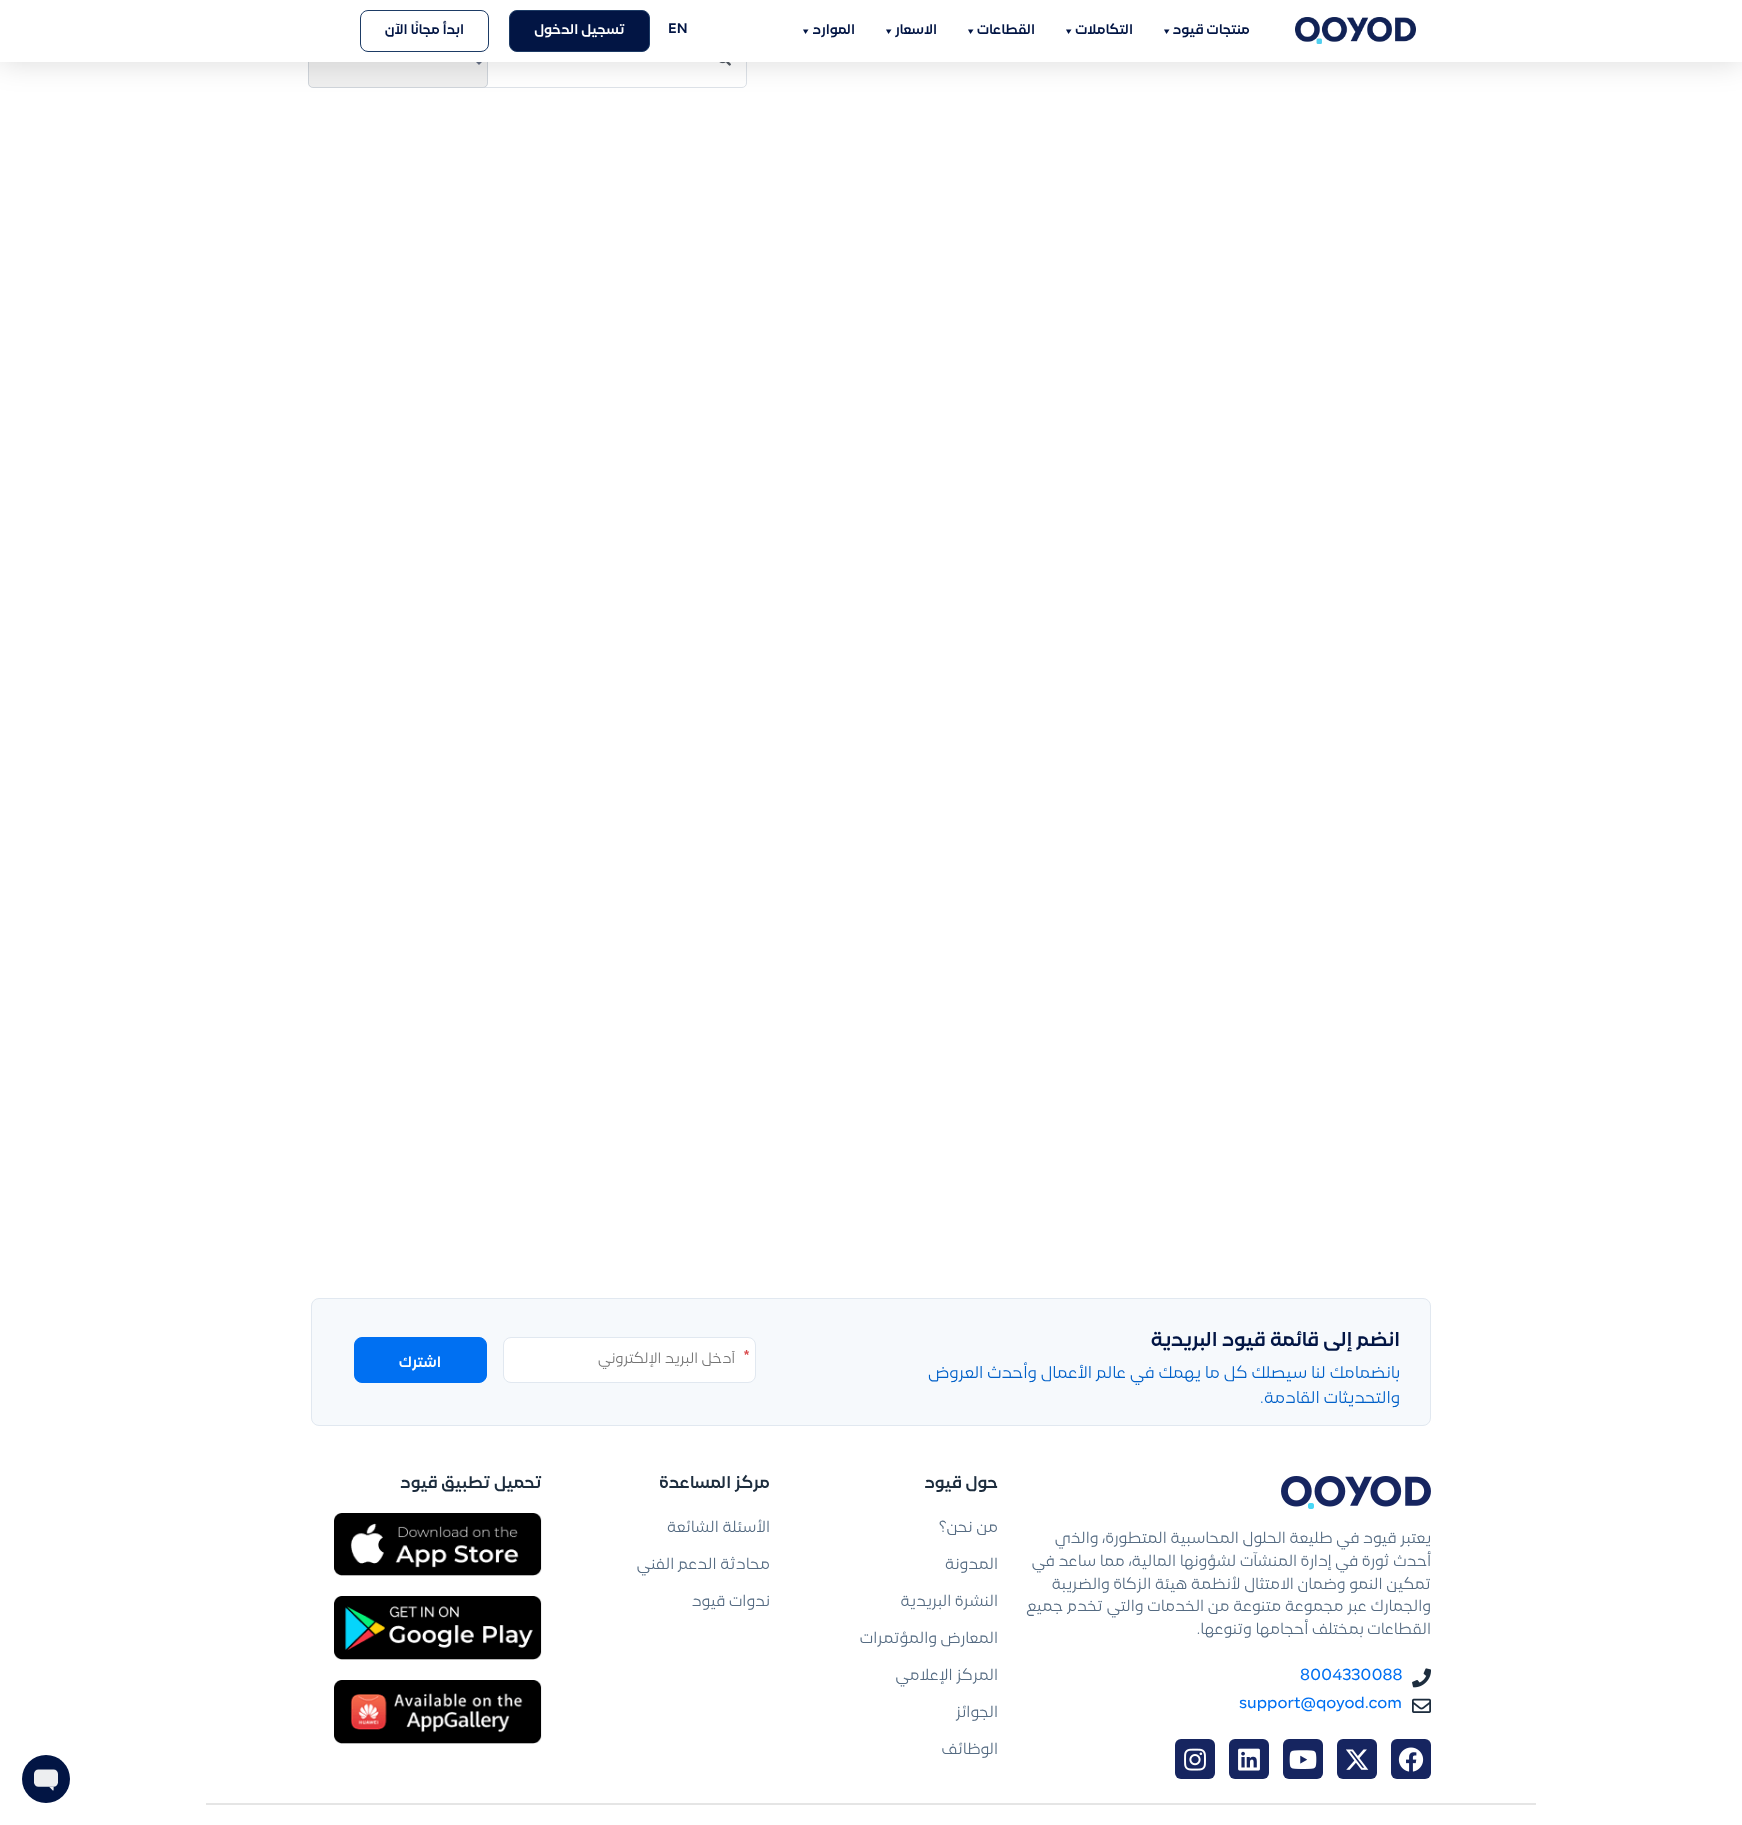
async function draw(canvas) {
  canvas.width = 1742
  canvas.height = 1825
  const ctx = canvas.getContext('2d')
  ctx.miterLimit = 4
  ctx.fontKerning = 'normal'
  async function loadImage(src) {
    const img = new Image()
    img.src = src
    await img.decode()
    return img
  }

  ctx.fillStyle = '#fff'
  ctx.fillRect(0, 0, 1742, 1825)
  ctx.beginPath()
  ctx.roundRect(475.5, 36.5, 271, 51, 4.5)
  ctx.strokeStyle = '#dde2e8'
  ctx.stroke()
  ctx.drawImage(await loadImage('image1.png'), 719, 62, 12, 4)
  ctx.fillStyle = '#efefef'
  ctx.beginPath()
  ctx.roundRect(308, 36, 180, 52, 5)
  ctx.fill()
  ctx.beginPath()
  ctx.roundRect(308.5, 36.5, 179, 51, 4.5)
  ctx.strokeStyle = '#1d3b6526'
  ctx.stroke()
  ctx.beginPath()
  ctx.moveTo(475, 59.5)
  ctx.lineTo(479, 63.5)
  ctx.lineTo(483, 59.5)
  ctx.strokeStyle = '#667085'
  ctx.lineWidth = 2
  ctx.stroke()
  ctx.fillStyle = '#00000026'
  ctx.filter = 'blur(15px)'
  ctx.beginPath()
  ctx.rect(0, 0, 1742, 62)
  ctx.fill()
  ctx.filter = 'none'
  ctx.fillStyle = '#fff'
  ctx.fillRect(0, 0, 1742, 62)
  ctx.drawImage(await loadImage('image0.png'), 1295, 17, 121, 27)
  ctx.direction = 'rtl'
  ctx.font = 'bold 14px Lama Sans'
  ctx.fillStyle = '#021544'
  ctx.fillText('منتجات قيود', 1250, 34)
  ctx.beginPath()
  ctx.moveTo(1169.5, 29.5)
  ctx.lineTo(1166.5, 34)
  ctx.lineTo(1164, 29.5)
  ctx.closePath()
  ctx.fill()
  ctx.fillText('التكاملات', 1133, 34)
  ctx.beginPath()
  ctx.moveTo(1071.5, 29.5)
  ctx.lineTo(1068.5, 34)
  ctx.lineTo(1066, 29.5)
  ctx.closePath()
  ctx.fill()
  ctx.fillText('القطاعات', 1035, 34)
  ctx.beginPath()
  ctx.moveTo(973.5, 29.5)
  ctx.lineTo(970.5, 34)
  ctx.lineTo(968, 29.5)
  ctx.closePath()
  ctx.fill()
  ctx.fillText('الاسعار', 937, 34)
  ctx.beginPath()
  ctx.moveTo(891.5, 29.5)
  ctx.lineTo(888.5, 34)
  ctx.lineTo(886, 29.5)
  ctx.closePath()
  ctx.fill()
  ctx.fillText('الموارد', 855, 34)
  ctx.beginPath()
  ctx.moveTo(808.5, 29.5)
  ctx.lineTo(805.5, 34)
  ctx.lineTo(803, 29.5)
  ctx.closePath()
  ctx.fill()
  ctx.direction = 'ltr'
  ctx.fillText('EN', 668, 33)
  ctx.beginPath()
  ctx.roundRect(509.5, 10.5, 140, 41, 7.5)
  ctx.fill()
  ctx.strokeStyle = '#1d3b65'
  ctx.lineWidth = 1
  ctx.stroke()
  ctx.direction = 'rtl'
  ctx.fillStyle = '#fff'
  ctx.fillText('تسجيل الدخول', 625, 34)
  ctx.beginPath()
  ctx.roundRect(360.5, 10.5, 128, 41, 7.5)
  ctx.stroke()
  ctx.fillStyle = '#021544'
  ctx.fillText('ابدأ مجانًا الآن', 464, 34)
  ctx.fillStyle = '#f6f9fc'
  ctx.beginPath()
  ctx.roundRect(311.5, 1298.5, 1119, 127, 7.5)
  ctx.fill()
  ctx.strokeStyle = '#e1e8f0'
  ctx.stroke()
  ctx.font = 'bold 20px Lama Sans'
  ctx.fillStyle = '#021544'
  ctx.fillText('انضم إلى قائمة قيود البريدية', 1400, 1346)
  ctx.font = '17px Lama Sans'
  ctx.fillStyle = '#0060c8'
  ctx.fillText('بانضمامك لنا سيصلك كل ما يهمك في عالم الأعمال وأحدث العروض', 1400, 1378)
  ctx.fillText('والتحديثات القادمة.', 1400, 1403)
  ctx.fillStyle = '#fff'
  ctx.beginPath()
  ctx.roundRect(503.5, 1337.5, 252, 45, 7.5)
  ctx.fill()
  ctx.stroke()
  ctx.direction = 'ltr'
  ctx.font = 'bold 13px Liberation Sans'
  ctx.fillStyle = '#d94b4d'
  ctx.fillText('*', 744, 1359)
  ctx.save()
  ctx.beginPath()
  ctx.rect(524, 1351, 211, 18)
  ctx.clip()
  ctx.direction = 'rtl'
  ctx.font = '15px Lama Sans'
  ctx.fillStyle = '#757575'
  ctx.fillText('أدخل البريد الإلكتروني', 735, 1363)
  ctx.restore()
  ctx.fillStyle = '#0070f2'
  ctx.beginPath()
  ctx.roundRect(354.5, 1337.5, 132, 45, 7.5)
  ctx.fill()
  ctx.strokeStyle = '#0070f2'
  ctx.stroke()
  ctx.direction = 'rtl'
  ctx.font = 'bold 15px Lama Sans'
  ctx.fillStyle = '#fff'
  ctx.fillText('اشترك', 441, 1367)
  ctx.drawImage(await loadImage('image2.png'), 1281, 1476, 150, 33)
  ctx.font = '16px Lama Sans'
  ctx.fillStyle = '#556b82'
  ctx.fillText('يعتبر قيود في طليعة الحلول المحاسبية المتطورة، والذي', 1431, 1543)
  ctx.fillText('أحدث ثورة في إدارة المنشآت لشؤونها المالية، مما ساعد في', 1431, 1566)
  ctx.fillText('تمكين النمو وضمان الامتثال لأنظمة هيئة الزكاة والضريبة', 1431, 1589)
  ctx.fillText('والجمارك عبر مجموعة متنوعة من الخدمات والتي تخدم جميع', 1431, 1611)
  ctx.fillText('القطاعات بمختلف أحجامها وتنوعها.', 1431, 1634)
  ctx.drawImage(await loadImage('image3.png'), 1412, 1668, 19, 20)
  ctx.direction = 'ltr'
  ctx.font = '500 16px Lama Sans'
  ctx.fillStyle = '#0070f2'
  ctx.fillText('8004330088', 1300, 1680)
  ctx.drawImage(await loadImage('image4.png'), 1412, 1698, 19, 15)
  ctx.fillText('support@qoyod.com', 1239, 1708)
  ctx.fillStyle = '#162560'
  ctx.beginPath()
  ctx.roundRect(1391, 1739, 40, 40, 6)
  ctx.fill()
  ctx.drawImage(await loadImage('image5.png'), 1398, 1747, 26, 25)
  ctx.beginPath()
  ctx.roundRect(1337, 1739, 40, 40, 6)
  ctx.fill()
  ctx.drawImage(await loadImage('image6.png'), 1346, 1749, 23, 21)
  ctx.beginPath()
  ctx.roundRect(1283, 1739, 40, 40, 6)
  ctx.fill()
  ctx.drawImage(await loadImage('image7.png'), 1289, 1750, 28, 19)
  ctx.beginPath()
  ctx.roundRect(1229, 1739, 40, 40, 6)
  ctx.fill()
  ctx.drawImage(await loadImage('image8.png'), 1238, 1748, 22, 23)
  ctx.beginPath()
  ctx.roundRect(1175, 1739, 40, 40, 6)
  ctx.fill()
  ctx.drawImage(await loadImage('image9.png'), 1184, 1748, 22, 23)
  ctx.direction = 'rtl'
  ctx.font = 'bold 17px Lama Sans'
  ctx.fillStyle = '#1d2d3e'
  ctx.fillText('حول قيود', 998, 1488)
  ctx.font = '16px Lama Sans'
  ctx.fillStyle = '#556b82'
  ctx.fillText('من نحن؟', 998, 1532)
  ctx.fillText('المدونة', 998, 1569)
  ctx.fillText('النشرة البريدية', 998, 1606)
  ctx.fillText('المعارض والمؤتمرات', 998, 1643)
  ctx.fillText('المركز الإعلامي', 998, 1680)
  ctx.fillText('الجوائز', 998, 1717)
  ctx.fillText('الوظائف', 998, 1754)
  ctx.font = 'bold 17px Lama Sans'
  ctx.fillStyle = '#1d2d3e'
  ctx.fillText('مركز المساعدة', 770, 1488)
  ctx.font = '16px Lama Sans'
  ctx.fillStyle = '#556b82'
  ctx.fillText('الأسئلة الشائعة', 770, 1532)
  ctx.fillText('محادثة الدعم الفني', 770, 1569)
  ctx.fillText('ندوات قيود', 770, 1606)
  ctx.font = 'bold 17px Lama Sans'
  ctx.fillStyle = '#1d2d3e'
  ctx.fillText('تحميل تطبيق قيود', 542, 1488)
  ctx.drawImage(await loadImage('image10.png'), 334, 1513, 208, 63)
  ctx.drawImage(await loadImage('image11.png'), 334, 1596, 208, 64)
  ctx.drawImage(await loadImage('image12.png'), 334, 1680, 208, 64)
  ctx.fillStyle = '#e5e5e5'
  ctx.fillRect(206, 1803, 1330, 2)
  ctx.drawImage(await loadImage('image13.png'), 22, 1755, 48, 48)
}

draw(document.querySelector('canvas'))
